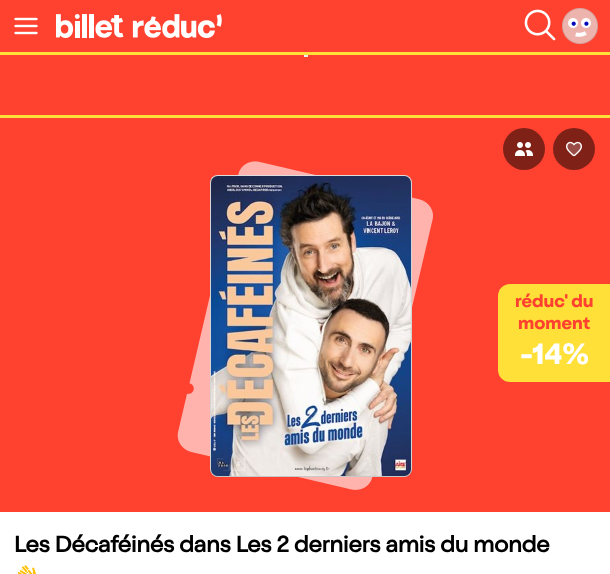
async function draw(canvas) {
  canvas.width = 610
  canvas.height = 574
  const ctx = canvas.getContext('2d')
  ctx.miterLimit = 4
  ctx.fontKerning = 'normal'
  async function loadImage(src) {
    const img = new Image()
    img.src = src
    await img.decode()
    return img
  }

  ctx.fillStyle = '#fff'
  ctx.fillRect(0, 0, 610, 574)
  ctx.fillStyle = '#ff4130'
  ctx.fillRect(0, 0, 610, 52)
  ctx.fillStyle = '#ffe039'
  ctx.fillRect(0, 52, 610, 3)
  ctx.drawImage(await loadImage('image0.png'), 14, 17, 24, 18)
  ctx.drawImage(await loadImage('image1.png'), 56, 14, 166, 24)
  ctx.drawImage(await loadImage('image2.png'), 524, 9, 32, 32)
  ctx.drawImage(await loadImage('image3.png'), 562, 8, 36, 36)
  ctx.fillStyle = '#ff4130'
  ctx.fillRect(0, 55, 610, 457)
  ctx.fillStyle = '#ffe039'
  ctx.fillRect(0, 115, 610, 3)
  ctx.fillStyle = '#eee'
  ctx.fillRect(304, 55, 4, 2)
  ctx.fillStyle = '#802118'
  ctx.beginPath()
  ctx.arc(524, 149, 21, 0, 2 * Math.PI)
  ctx.fill()
  ctx.drawImage(await loadImage('image4.png'), 515, 142, 18, 14)
  ctx.beginPath()
  ctx.arc(574, 149, 21, 0, 2 * Math.PI)
  ctx.fill()
  ctx.drawImage(await loadImage('image5.png'), 566, 141, 16, 16)
  ctx.drawImage(await loadImage('image6.png'), 177, 161, 256, 329)
  ctx.fillStyle = '#fff'
  ctx.beginPath()
  ctx.roundRect(210, 175, 202, 302, 8)
  ctx.fill()
  ctx.beginPath()
  ctx.roundRect(210.5, 175.5, 201, 301, 7.5)
  ctx.strokeStyle = '#0000001a'
  ctx.stroke()
  ctx.drawImage(await loadImage('image7.png'), 210, 175, 202, 302)
  ctx.fillStyle = '#ffe039'
  ctx.beginPath()
  ctx.roundRect(498, 284, 112, 98, [12, 0, 0, 12])
  ctx.fill()
  ctx.font = 'bold 18px "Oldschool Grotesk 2"'
  ctx.fillStyle = '#ff4130'
  ctx.fillText('réduc\' du', 515, 307)
  ctx.fillText('moment', 518, 329)
  ctx.font = 'bold 30px "Oldschool Grotesk 2"'
  ctx.fillStyle = '#fff'
  ctx.fillText('-14%', 520, 364)
  ctx.font = 'bold 23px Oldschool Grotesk'
  ctx.fillStyle = '#000'
  ctx.fillText('Les Décaféinés dans Les 2 derniers amis du monde', 14, 552)
  ctx.drawImage(await loadImage('image8.png'), 17, 565, 19, 9)
}

draw(document.querySelector('canvas'))
